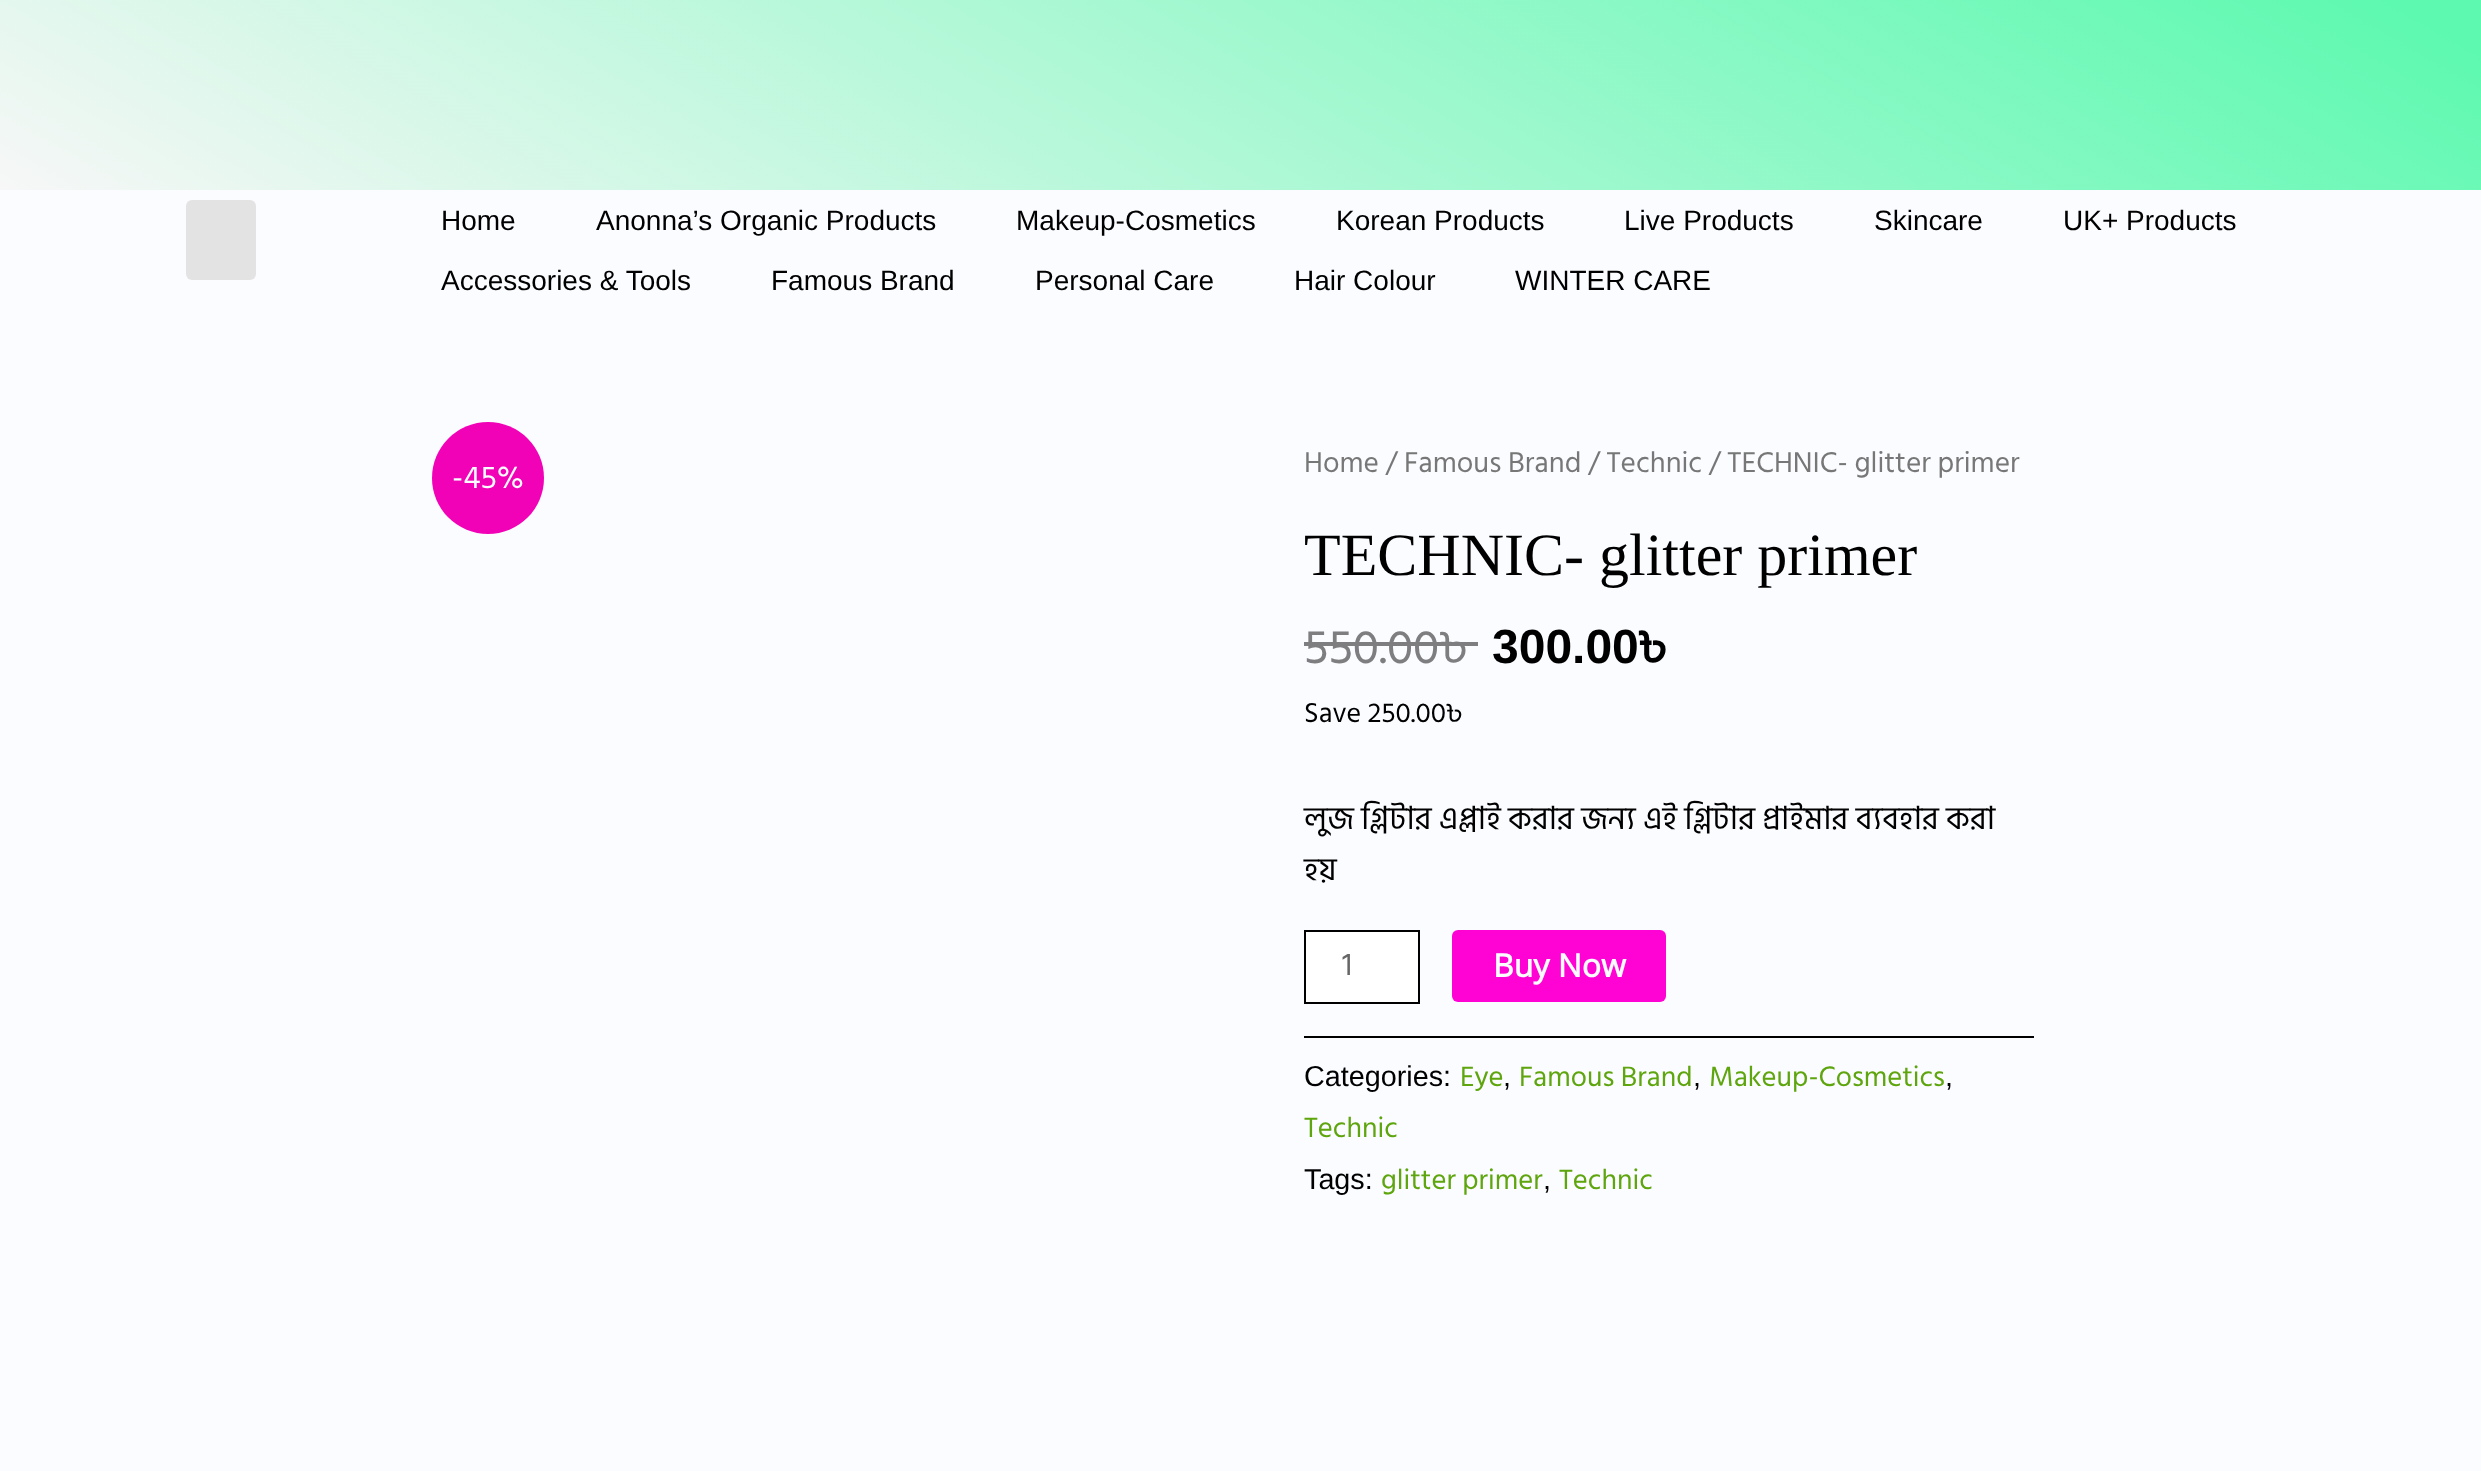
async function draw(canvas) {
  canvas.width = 2481
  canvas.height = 1471
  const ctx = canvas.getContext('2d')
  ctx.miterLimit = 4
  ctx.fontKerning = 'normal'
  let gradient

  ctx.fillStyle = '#fbfcff'
  ctx.fillRect(0, 0, 2481, 1471)
  gradient = ctx.createLinearGradient(1716, -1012, 766, 632)
  gradient.addColorStop(0.28, '#5df9b0')
  gradient.addColorStop(1, '#f7f7f7')
  ctx.fillStyle = gradient
  ctx.fillRect(0, 0, 2481, 190)
  ctx.fillStyle = '#e3e3e3'
  ctx.beginPath()
  ctx.roundRect(186, 200, 70, 80, 6)
  ctx.fill()
  ctx.font = '28px Liberation Sans'
  ctx.fillStyle = '#000'
  ctx.fillText('Home', 441, 230)
  ctx.fillText('Anonna’s Organic Products', 596, 230)
  ctx.fillText('Makeup-Cosmetics', 1016, 230)
  ctx.fillText('Korean Products', 1336, 230)
  ctx.fillText('Live Products', 1624, 230)
  ctx.fillText('Skincare', 1874, 230)
  ctx.fillText('UK+ Products', 2063, 230)
  ctx.fillText('Accessories & Tools', 441, 290)
  ctx.fillText('Famous Brand', 771, 290)
  ctx.fillText('Personal Care', 1035, 290)
  ctx.fillText('Hair Colour', 1294, 290)
  ctx.fillText('WINTER CARE', 1515, 290)
  ctx.fillStyle = '#f202b6'
  ctx.beginPath()
  ctx.arc(488, 478, 56, 0, 2 * Math.PI)
  ctx.fill()
  ctx.font = '32px Hind Siliguri'
  ctx.fillStyle = '#fbfcff'
  ctx.fillText('-45%', 452, 488)
  ctx.font = '29.4px Hind Siliguri'
  ctx.fillStyle = '#777'
  ctx.fillText('Home / Famous Brand / Technic / TECHNIC- glitter primer', 1304, 472)
  ctx.font = '60px Liberation Serif'
  ctx.fillStyle = '#000'
  ctx.fillText('TECHNIC- glitter primer', 1304, 575)
  ctx.font = '48px Hind Siliguri'
  ctx.fillStyle = '#7e7e80'
  ctx.fillText('550.00৳', 1304, 663)
  ctx.fillRect(1304, 642, 174, 4)
  ctx.font = 'bold 48px Liberation Sans'
  ctx.fillStyle = '#000'
  ctx.fillText('300.00', 1492, 663)
  ctx.font = 'bold 48px Hind Siliguri'
  ctx.fillText('৳', 1638, 663)
  ctx.font = '28px Hind Siliguri'
  ctx.fillText('Save 250.00৳', 1304, 722)
  ctx.font = '32px Hind Siliguri'
  ctx.fillText('লুজ গ্লিটার এপ্লাই করার জন্য এই গ্লিটার প্রাইমার ব্যবহার করা', 1304, 829)
  ctx.fillText('হয়', 1304, 880)
  ctx.fillStyle = '#fff'
  ctx.beginPath()
  ctx.rect(1305, 931, 114, 72)
  ctx.fill()
  ctx.strokeStyle = '#000'
  ctx.lineWidth = 2
  ctx.stroke()
  ctx.fillStyle = '#666'
  ctx.fillText('1', 1342, 975)
  ctx.fillStyle = '#ff03d5'
  ctx.beginPath()
  ctx.roundRect(1452, 930, 214, 72, 6)
  ctx.fill()
  ctx.font = 'bold 32px Open Sans'
  ctx.fillStyle = '#fbfcff'
  ctx.fillText('Buy Now', 1493, 977)
  ctx.fillStyle = '#000'
  ctx.fillRect(1304, 1036, 730, 2)
  ctx.font = '28.75px Liberation Sans'
  ctx.fillText('Categories:', 1304, 1086)
  ctx.font = '28.75px Hind Siliguri'
  ctx.fillStyle = '#5ea50e'
  ctx.fillText('Eye', 1460, 1086)
  ctx.font = '28.75px Liberation Sans'
  ctx.fillStyle = '#000'
  ctx.fillText(',', 1503, 1086)
  ctx.font = '28.75px Hind Siliguri'
  ctx.fillStyle = '#5ea50e'
  ctx.fillText('Famous Brand', 1519, 1086)
  ctx.font = '28.75px Liberation Sans'
  ctx.fillStyle = '#000'
  ctx.fillText(',', 1693, 1086)
  ctx.font = '28.75px Hind Siliguri'
  ctx.fillStyle = '#5ea50e'
  ctx.fillText('Makeup-Cosmetics', 1709, 1086)
  ctx.font = '28.75px Liberation Sans'
  ctx.fillStyle = '#000'
  ctx.fillText(',', 1945, 1086)
  ctx.font = '28.75px Hind Siliguri'
  ctx.fillStyle = '#5ea50e'
  ctx.fillText('Technic', 1304, 1137)
  ctx.font = '28.75px Liberation Sans'
  ctx.fillStyle = '#000'
  ctx.fillText('Tags:', 1304, 1189)
  ctx.font = '28.75px Hind Siliguri'
  ctx.fillStyle = '#5ea50e'
  ctx.fillText('glitter primer', 1381, 1189)
  ctx.font = '28.75px Liberation Sans'
  ctx.fillStyle = '#000'
  ctx.fillText(',', 1543, 1189)
  ctx.font = '28.75px Hind Siliguri'
  ctx.fillStyle = '#5ea50e'
  ctx.fillText('Technic', 1559, 1189)
}

draw(document.querySelector('canvas'))
